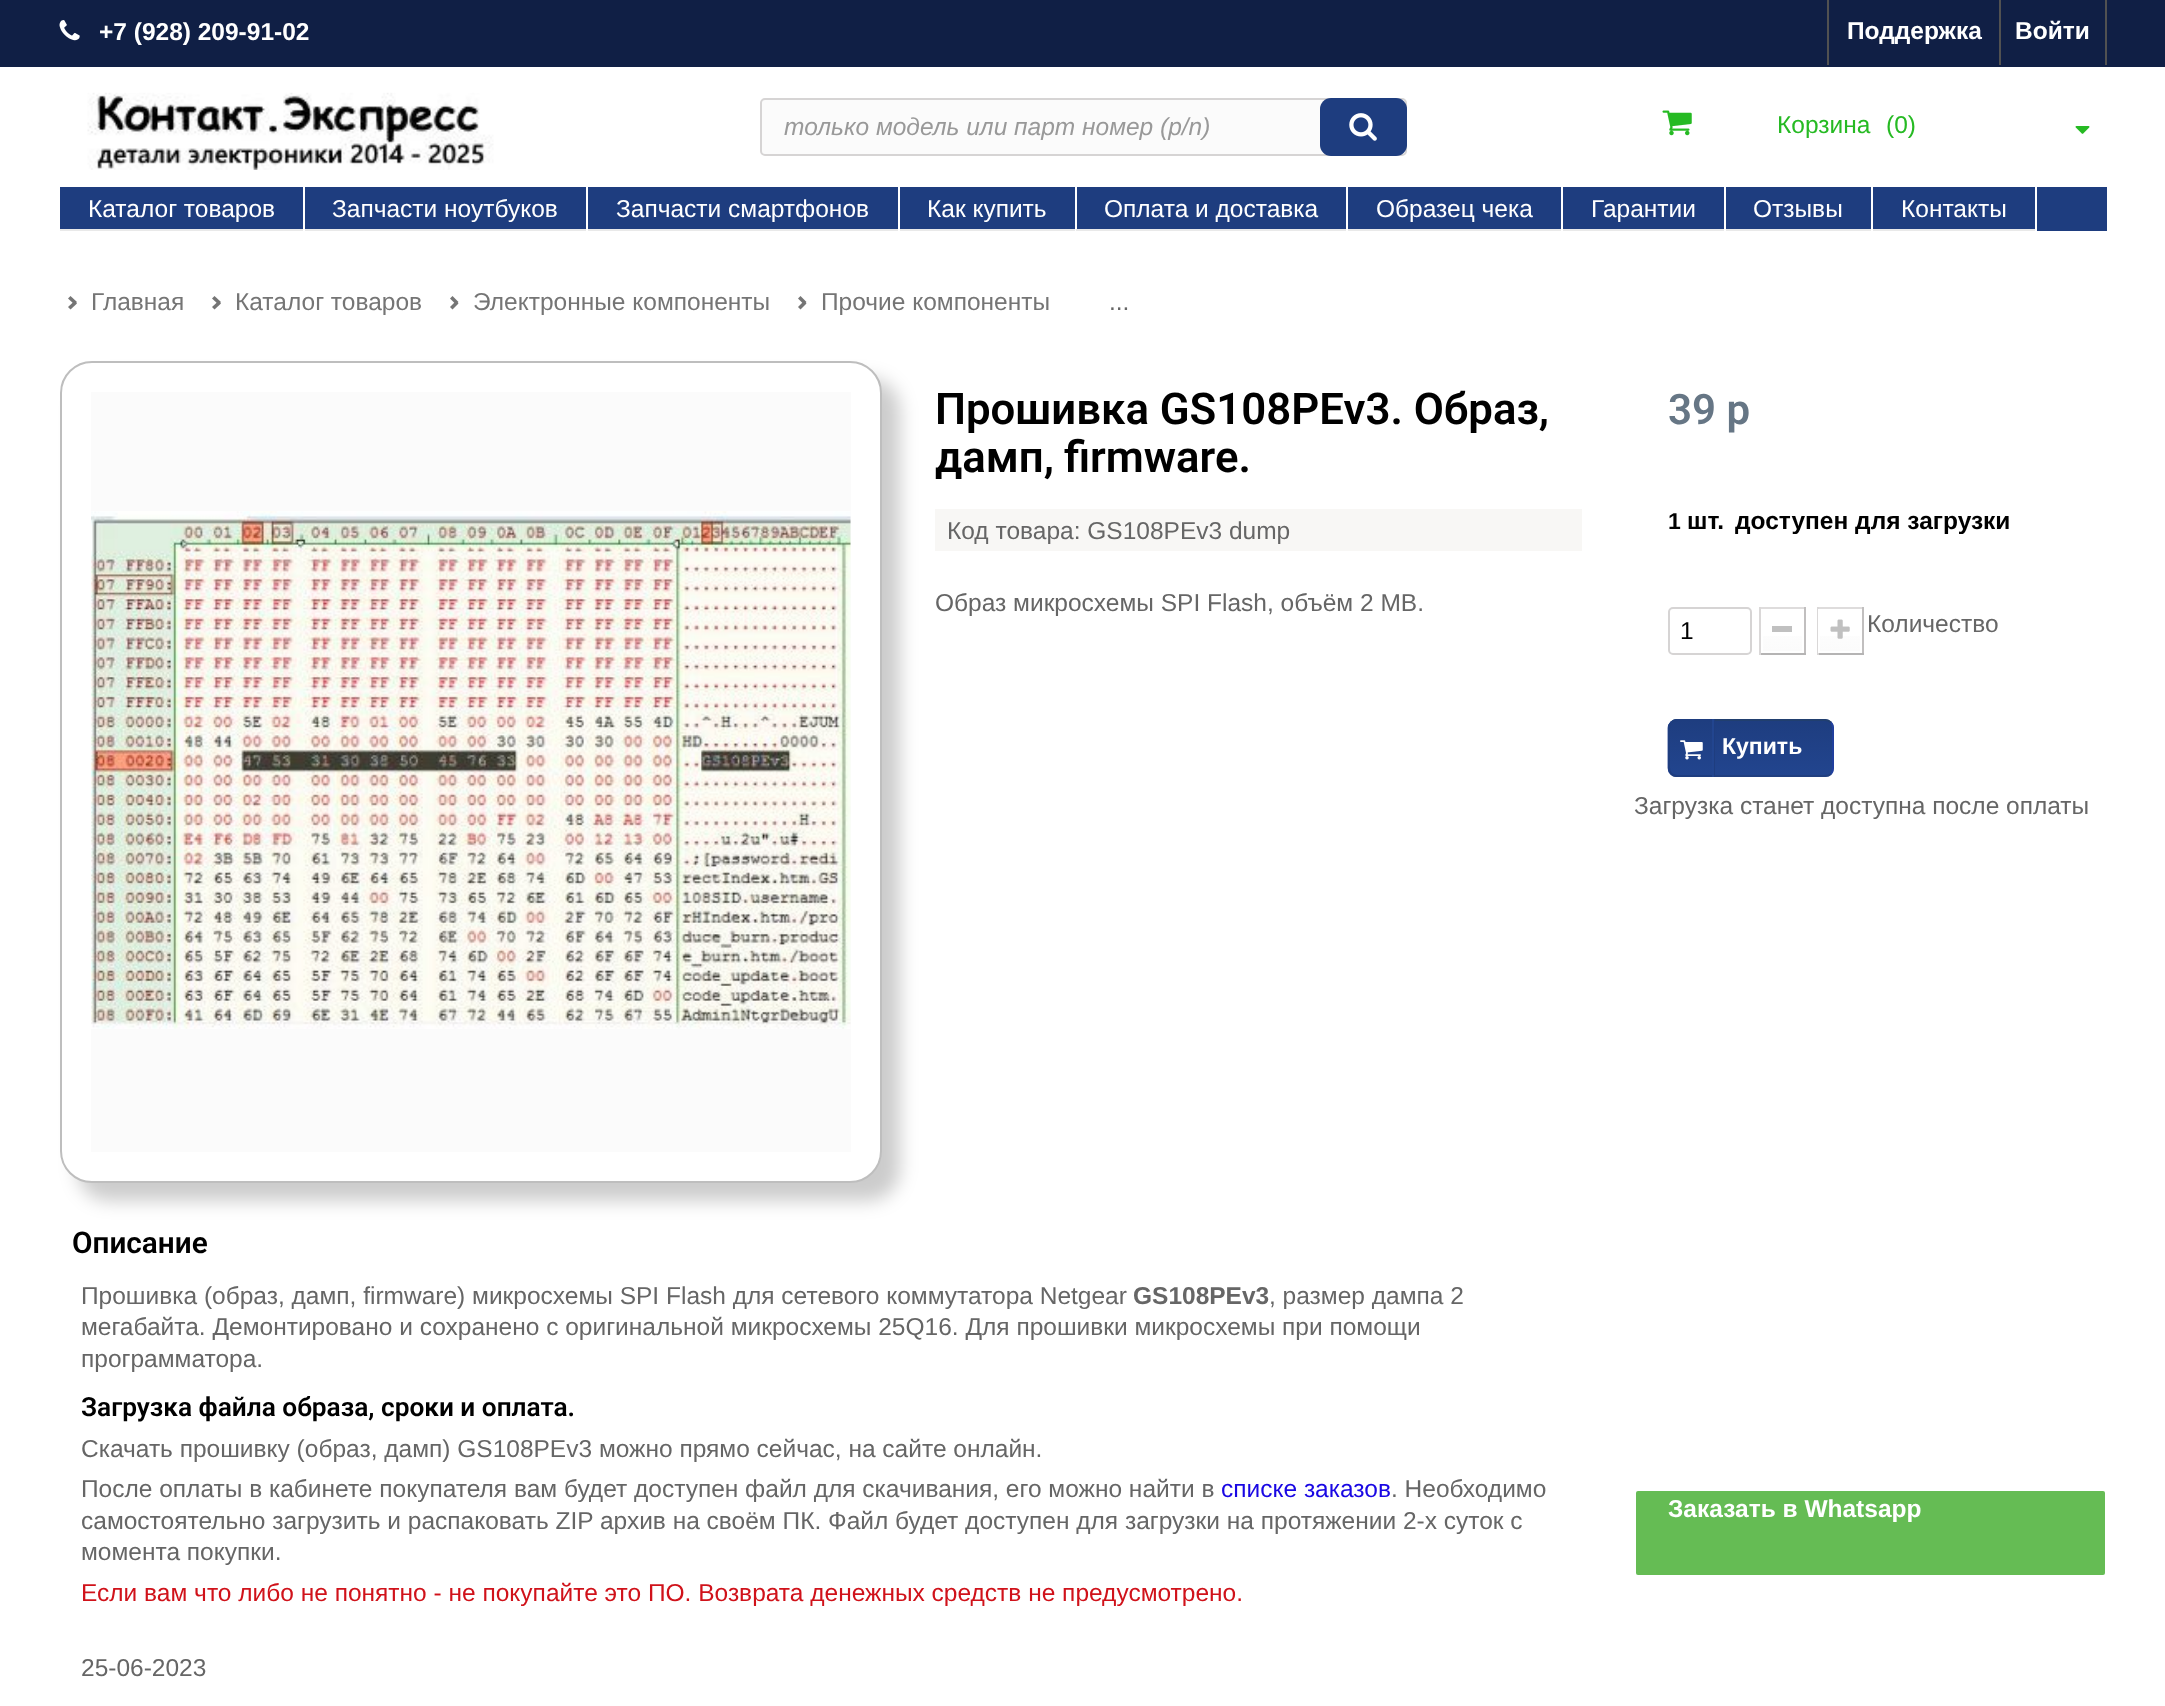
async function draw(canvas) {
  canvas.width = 2165
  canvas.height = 1706
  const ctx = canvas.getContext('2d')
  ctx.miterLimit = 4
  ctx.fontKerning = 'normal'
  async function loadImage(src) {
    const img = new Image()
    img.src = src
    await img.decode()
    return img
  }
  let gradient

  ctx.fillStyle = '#fff'
  ctx.fillRect(0, 0, 2165, 1706)
  ctx.fillStyle = '#101f45'
  ctx.fillRect(0, 0, 2165, 67)
  ctx.drawImage(await loadImage('image0.png'), 59, 20, 21, 21)
  ctx.font = 'bold 24.5px Liberation Sans'
  ctx.fillStyle = '#fff'
  ctx.fillText('+7 (928) 209-91-02', 99, 40)
  ctx.fillStyle = '#515151'
  ctx.fillRect(1827, 0, 2, 65)
  ctx.fillStyle = '#fff'
  ctx.fillText('Поддержка', 1847, 39)
  ctx.fillStyle = '#515151'
  ctx.fillRect(2105, 0, 2, 65)
  ctx.fillRect(1999, 0, 2, 65)
  ctx.fillStyle = '#fff'
  ctx.fillText('Войти', 2015, 39)
  ctx.drawImage(await loadImage('image1.png'), 87, 92, 407, 78)
  ctx.fillStyle = '#fbfbfb'
  ctx.beginPath()
  ctx.roundRect(761, 99, 645, 56, 4)
  ctx.fill()
  ctx.strokeStyle = '#d6d4d4'
  ctx.lineWidth = 2
  ctx.stroke()
  ctx.save()
  ctx.beginPath()
  ctx.rect(784, 112, 599, 28)
  ctx.clip()
  ctx.font = 'italic 24.5px Liberation Sans'
  ctx.fillStyle = '#999'
  ctx.fillText('только модель или парт номер (p/n)', 784, 135)
  ctx.restore()
  ctx.fillStyle = '#1e3d7f'
  ctx.beginPath()
  ctx.roundRect(1320, 98, 87, 58, 11)
  ctx.fill()
  ctx.drawImage(await loadImage('image2.png'), 1349, 113, 28, 28)
  ctx.drawImage(await loadImage('image3.png'), 1662, 110, 30, 26)
  ctx.font = '24.5px Liberation Sans'
  ctx.fillStyle = '#26ba23'
  ctx.fillText('Корзина', 1777, 133)
  ctx.fillText('(0)', 1886, 133)
  ctx.drawImage(await loadImage('image4.png'), 2075, 126, 15, 8)
  ctx.fillStyle = '#1e3d7f'
  ctx.fillRect(60, 187, 2047, 44)
  ctx.fillStyle = '#fff'
  ctx.fillRect(303, 187, 2, 44)
  ctx.fillStyle = '#e9e9e9'
  ctx.fillRect(60, 229, 243, 2)
  ctx.fillStyle = '#fff'
  ctx.fillText('Каталог товаров', 88, 217)
  ctx.fillRect(586, 187, 2, 44)
  ctx.fillStyle = '#e9e9e9'
  ctx.fillRect(305, 229, 281, 2)
  ctx.fillStyle = '#fff'
  ctx.fillText('Запчасти ноутбуков', 332, 217)
  ctx.fillRect(898, 187, 2, 44)
  ctx.fillStyle = '#e9e9e9'
  ctx.fillRect(588, 229, 310, 2)
  ctx.fillStyle = '#fff'
  ctx.fillText('Запчасти смартфонов', 616, 217)
  ctx.fillRect(1075, 187, 2, 44)
  ctx.fillStyle = '#e9e9e9'
  ctx.fillRect(900, 229, 175, 2)
  ctx.fillStyle = '#fff'
  ctx.fillText('Как купить', 927, 217)
  ctx.fillRect(1346, 187, 2, 44)
  ctx.fillStyle = '#e9e9e9'
  ctx.fillRect(1076, 229, 270, 2)
  ctx.fillStyle = '#fff'
  ctx.fillText('Оплата и доставка', 1104, 217)
  ctx.fillRect(1561, 187, 2, 44)
  ctx.fillStyle = '#e9e9e9'
  ctx.fillRect(1348, 229, 213, 2)
  ctx.fillStyle = '#fff'
  ctx.fillText('Образец чека', 1376, 217)
  ctx.fillRect(1724, 187, 2, 44)
  ctx.fillStyle = '#e9e9e9'
  ctx.fillRect(1563, 229, 161, 2)
  ctx.fillStyle = '#fff'
  ctx.fillText('Гарантии', 1591, 217)
  ctx.fillRect(1871, 187, 2, 44)
  ctx.fillStyle = '#e9e9e9'
  ctx.fillRect(1726, 229, 145, 2)
  ctx.fillStyle = '#fff'
  ctx.fillText('Отзывы', 1753, 217)
  ctx.fillRect(2035, 187, 2, 44)
  ctx.fillStyle = '#e9e9e9'
  ctx.fillRect(1873, 229, 162, 2)
  ctx.fillStyle = '#fff'
  ctx.fillText('Контакты', 1901, 217)
  ctx.fillStyle = '#757575'
  ctx.beginPath()
  ctx.moveTo(70.5, 296)
  ctx.lineTo(77, 302)
  ctx.lineTo(74.5, 304.5)
  ctx.lineTo(68, 298.5)
  ctx.closePath()
  ctx.fill()
  ctx.beginPath()
  ctx.moveTo(74.5, 301)
  ctx.lineTo(77, 303.5)
  ctx.lineTo(70.5, 309.5)
  ctx.lineTo(68, 307)
  ctx.closePath()
  ctx.fill()
  ctx.fillText('Главная', 91, 310)
  ctx.beginPath()
  ctx.moveTo(214.5, 296)
  ctx.lineTo(221, 302)
  ctx.lineTo(218.5, 304.5)
  ctx.lineTo(212, 298.5)
  ctx.closePath()
  ctx.fill()
  ctx.beginPath()
  ctx.moveTo(218.5, 301)
  ctx.lineTo(221, 303.5)
  ctx.lineTo(214.5, 309.5)
  ctx.lineTo(212, 307)
  ctx.closePath()
  ctx.fill()
  ctx.fillText('Каталог товаров', 235, 310)
  ctx.beginPath()
  ctx.moveTo(452.5, 296)
  ctx.lineTo(458.5, 302)
  ctx.lineTo(456, 304.5)
  ctx.lineTo(450, 298.5)
  ctx.closePath()
  ctx.fill()
  ctx.beginPath()
  ctx.moveTo(456, 301)
  ctx.lineTo(458.5, 303.5)
  ctx.lineTo(452.5, 309.5)
  ctx.lineTo(450, 307)
  ctx.closePath()
  ctx.fill()
  ctx.fillText('Электронные компоненты', 473, 310)
  ctx.beginPath()
  ctx.moveTo(800.5, 296)
  ctx.lineTo(806.5, 302)
  ctx.lineTo(804, 304.5)
  ctx.lineTo(798, 298.5)
  ctx.closePath()
  ctx.fill()
  ctx.beginPath()
  ctx.moveTo(804, 301)
  ctx.lineTo(806.5, 303.5)
  ctx.lineTo(800.5, 309.5)
  ctx.lineTo(798, 307)
  ctx.closePath()
  ctx.fill()
  ctx.fillText('Прочие компоненты', 821, 310)
  ctx.fillStyle = '#666'
  ctx.fillText('...', 1109, 310)
  ctx.fillStyle = '#00000033'
  ctx.filter = 'blur(9px)'
  ctx.beginPath()
  ctx.roundRect(77, 378, 823, 823, 32)
  ctx.fill()
  ctx.filter = 'none'
  ctx.fillStyle = '#fff'
  ctx.beginPath()
  ctx.roundRect(61, 362, 820, 820, 31)
  ctx.fill()
  ctx.strokeStyle = '#bebebe'
  ctx.stroke()
  ctx.fillStyle = '#fbfbfb'
  ctx.fillRect(91, 392, 760, 760)
  ctx.drawImage(await loadImage('image5.png'), 91, 511, 760, 518)
  ctx.font = '600 43.75px Roboto'
  ctx.fillStyle = '#000'
  ctx.fillText('Прошивка GS108PEv3. Образ,', 935, 424)
  ctx.wordSpacing = '-1px'
  ctx.fillText('дамп, firmware.', 935, 472)
  ctx.fillStyle = '#f8f7f5'
  ctx.fillRect(935, 509, 647, 42)
  ctx.wordSpacing = '0px'
  ctx.font = '24.5px Liberation Sans'
  ctx.fillStyle = '#666'
  ctx.fillText('Код товара: GS108PEv3 dump', 947, 539)
  ctx.fillText('Образ микросхемы SPI Flash, объём 2 MB.', 935, 611)
  ctx.font = '600 42px Roboto'
  ctx.fillStyle = '#667685'
  ctx.fillText('39 р', 1668, 424)
  ctx.font = 'bold 23px Liberation Sans'
  ctx.fillStyle = '#000'
  ctx.fillText('1', 1668, 529)
  ctx.font = 'bold 24.5px Liberation Sans'
  ctx.fillText('шт.', 1687, 529)
  ctx.fillText('доступен для загрузки', 1735, 529)
  ctx.beginPath()
  ctx.roundRect(1669, 608, 82, 46, 4)
  ctx.strokeStyle = '#d6d4d4'
  ctx.stroke()
  ctx.font = '24.5px Liberation Sans'
  ctx.fillText('1', 1680, 639)
  ctx.fillStyle = '#dedcdc'
  ctx.fillRect(1759, 607, 47, 2)
  ctx.fillStyle = '#c1bfbf'
  ctx.fillRect(1804, 607, 2, 48)
  ctx.fillStyle = '#b5b4b4'
  ctx.fillRect(1759, 653, 47, 2)
  ctx.fillStyle = '#dad8d8'
  ctx.fillRect(1759, 607, 2, 48)
  gradient = ctx.createLinearGradient(1782, 611, 1782, 651)
  gradient.addColorStop(0, '#fff')
  gradient.addColorStop(1, '#fbfbfb')
  ctx.fillStyle = gradient
  ctx.fillRect(1763, 636, 39, 15)
  ctx.fillStyle = '#c0c0c0'
  ctx.fillRect(1772, 626, 20, 6)
  ctx.fillStyle = '#dedcdc'
  ctx.fillRect(1817, 607, 47, 2)
  ctx.fillStyle = '#c1bfbf'
  ctx.fillRect(1862, 607, 2, 48)
  ctx.fillStyle = '#b5b4b4'
  ctx.fillRect(1817, 653, 47, 2)
  ctx.fillStyle = '#dad8d8'
  ctx.fillRect(1817, 607, 2, 48)
  gradient = ctx.createLinearGradient(1840, 611, 1840, 651)
  gradient.addColorStop(0, '#fff')
  gradient.addColorStop(1, '#fbfbfb')
  ctx.fillStyle = gradient
  ctx.fillRect(1820, 636, 40, 15)
  ctx.strokeStyle = '#fff'
  ctx.strokeRect(1819, 610, 42, 42)
  ctx.drawImage(await loadImage('image6.png'), 1830, 619, 20, 20)
  ctx.fillStyle = '#666'
  ctx.fillText('Количество', 1867, 632)
  gradient = ctx.createLinearGradient(1751, 719, 1751, 777)
  gradient.addColorStop(0, '#1e3d7f')
  gradient.addColorStop(1, '#22458f')
  ctx.fillStyle = gradient
  ctx.beginPath()
  ctx.roundRect(1668, 719, 166, 58, 9)
  ctx.fill()
  ctx.beginPath()
  ctx.moveTo(1671, 722.5)
  ctx.bezierCurveTo(1672.5, 721, 1674.5, 720, 1676.5, 720)
  ctx.lineTo(1825, 720)
  ctx.bezierCurveTo(1827.5, 720, 1829.5, 721, 1831, 722.5)
  ctx.strokeStyle = '#213f6f'
  ctx.lineWidth = 1.8
  ctx.stroke()
  ctx.beginPath()
  ctx.moveTo(1831, 722.5)
  ctx.bezierCurveTo(1832.5, 724, 1833, 726, 1833, 728)
  ctx.lineTo(1833, 768)
  ctx.bezierCurveTo(1833, 770.5, 1832.5, 772.5, 1831, 774)
  ctx.strokeStyle = '#213f9f'
  ctx.stroke()
  ctx.beginPath()
  ctx.moveTo(1831, 774)
  ctx.bezierCurveTo(1829.5, 775.5, 1827.5, 776, 1825, 776)
  ctx.lineTo(1676.5, 776)
  ctx.bezierCurveTo(1674.5, 776, 1672.5, 775.5, 1671, 774)
  ctx.strokeStyle = '#213f7f'
  ctx.stroke()
  ctx.beginPath()
  ctx.moveTo(1671, 774)
  ctx.bezierCurveTo(1669.5, 772.5, 1668.5, 770.5, 1668.5, 768)
  ctx.lineTo(1668.5, 728)
  ctx.bezierCurveTo(1668.5, 726, 1669.5, 724, 1671, 722.5)
  ctx.strokeStyle = '#213f8f'
  ctx.stroke()
  ctx.beginPath()
  ctx.roundRect(1669, 720, 45, 56, [8, 0, 0, 8])
  ctx.strokeStyle = '#1e3d7f'
  ctx.lineWidth = 2
  ctx.stroke()
  ctx.drawImage(await loadImage('image7.png'), 1680, 740, 23, 20)
  ctx.fillStyle = '#22458f'
  ctx.fillRect(1712, 719, 2, 58)
  ctx.font = 'bold 23px Liberation Sans'
  ctx.fillStyle = '#fff'
  ctx.fillText('Купить', 1722, 754)
  ctx.font = '24.5px Liberation Sans'
  ctx.fillStyle = '#666'
  ctx.fillText('Загрузка станет доступна после оплаты', 1634, 814)
  ctx.font = '600 29.75px Roboto'
  ctx.fillStyle = '#000'
  ctx.fillText('Описание', 72, 1253)
  ctx.font = '24.5px Liberation Sans'
  ctx.fillStyle = '#666'
  ctx.fillText('Прошивка (образ, дамп, firmware) микросхемы SPI Flash для сетевого коммутатора Netgear', 81, 1304)
  ctx.font = 'bold 24.5px Liberation Sans'
  ctx.fillText('GS108PEv3', 1133, 1304)
  ctx.font = '24.5px Liberation Sans'
  ctx.fillText(', размер дампа 2', 1269, 1304)
  ctx.fillText('мегабайта. Демонтировано и сохранено с оригинальной микросхемы 25Q16. Для прошивки микросхемы при помощи', 81, 1335)
  ctx.fillText('программатора.', 81, 1367)
  ctx.font = '600 26.25px Roboto'
  ctx.fillStyle = '#000'
  ctx.fillText('Загрузка файла образа, сроки и оплата.', 81, 1416)
  ctx.font = '24.5px Liberation Sans'
  ctx.fillStyle = '#666'
  ctx.fillText('Скачать прошивку (образ, дамп) GS108PEv3 можно прямо сейчас, на сайте онлайн.', 81, 1457)
  ctx.fillText('После оплаты в кабинете покупателя вам будет доступен файл для скачивания, его можно найти в', 81, 1497)
  ctx.fillStyle = '#1907e3'
  ctx.fillText('списке заказов', 1221, 1497)
  ctx.fillStyle = '#666'
  ctx.fillText('. Необходимо', 1391, 1497)
  ctx.fillText('самостоятельно загрузить и распаковать ZIP архив на своём ПК. Файл будет доступен для загрузки на протяжении 2-х суток с', 81, 1529)
  ctx.fillText('момента покупки.', 81, 1560)
  ctx.fillStyle = '#d0121a'
  ctx.fillText('Если вам что либо не понятно - не покупайте это ПО. Возврата денежных средств не предусмотрено.', 81, 1601)
  ctx.fillStyle = '#666'
  ctx.fillText('25-06-2023', 81, 1676)
  ctx.fillStyle = '#65bc54'
  ctx.beginPath()
  ctx.roundRect(1636, 1491, 469, 84, 2)
  ctx.fill()
  ctx.font = 'bold 24.5px Liberation Sans'
  ctx.fillStyle = '#fff'
  ctx.fillText('Заказать в Whatsapp', 1668, 1517)
}

draw(document.querySelector('canvas'))
